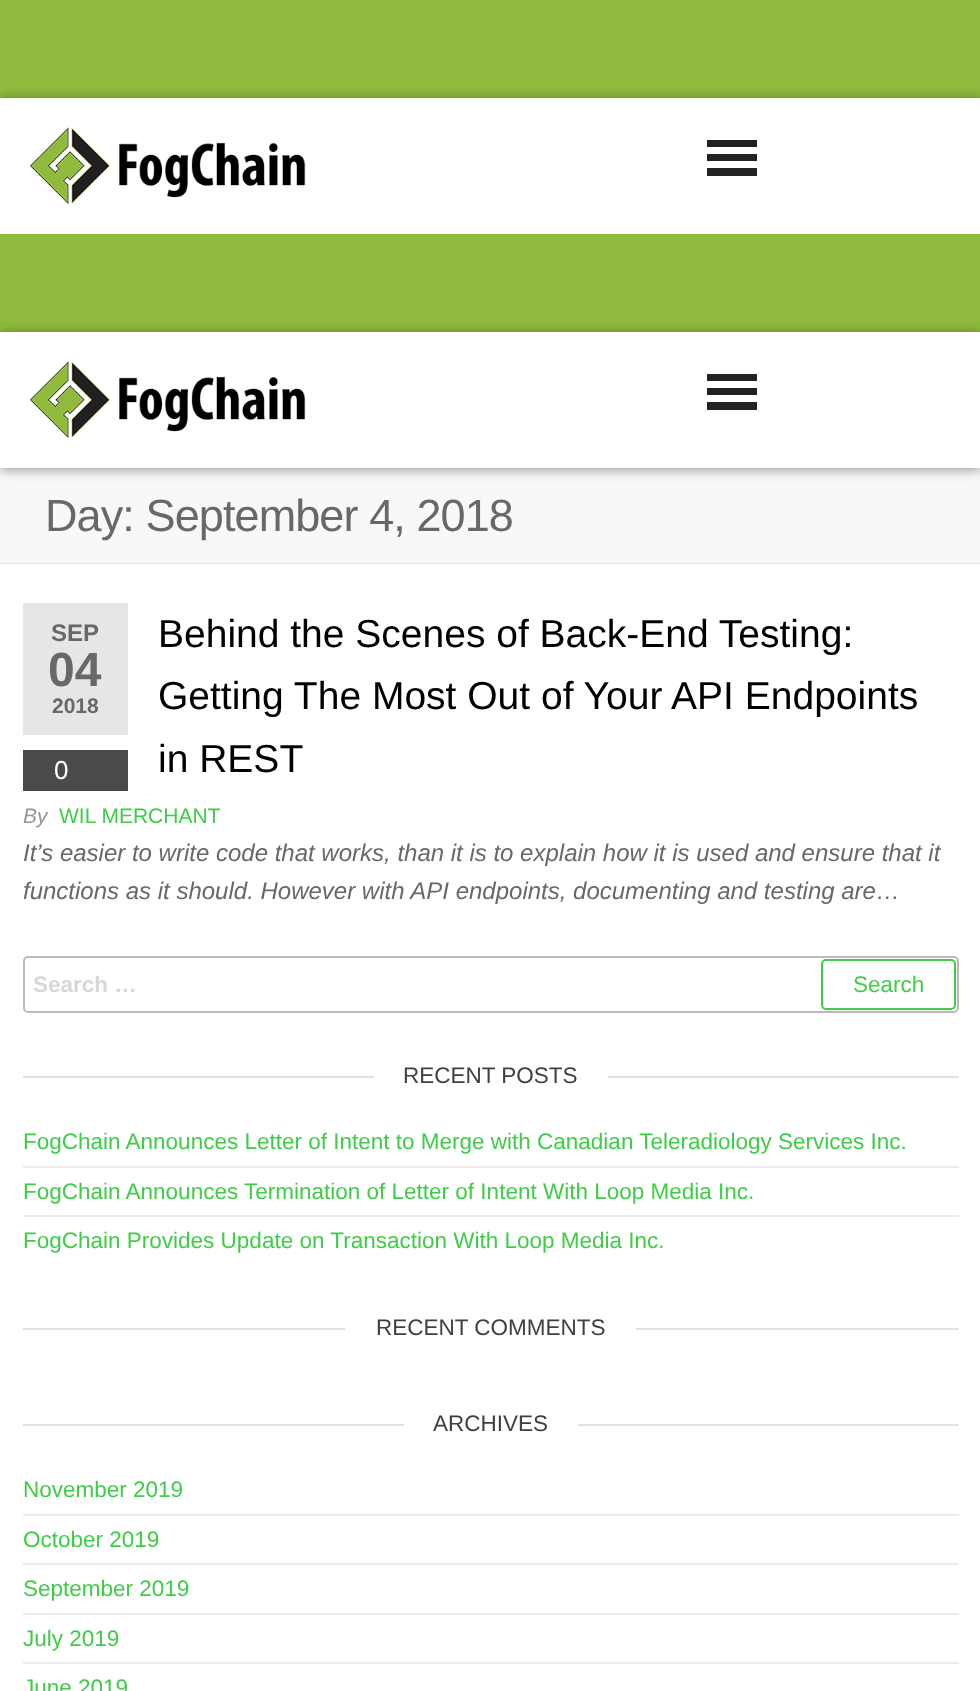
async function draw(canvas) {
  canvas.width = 980
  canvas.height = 1691
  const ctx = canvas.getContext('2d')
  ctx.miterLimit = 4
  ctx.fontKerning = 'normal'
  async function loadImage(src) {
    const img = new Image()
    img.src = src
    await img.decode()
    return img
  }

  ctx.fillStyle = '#fff'
  ctx.fillRect(0, 0, 980, 1691)
  ctx.fillStyle = '#90ba3e'
  ctx.fillRect(0, 0, 980, 98)
  ctx.save()
  ctx.beginPath()
  ctx.rect(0, 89, 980, 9)
  ctx.clip()
  ctx.fillStyle = '#00000061'
  ctx.filter = 'blur(6px)'
  ctx.beginPath()
  ctx.rect(0, 99, 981, 137)
  ctx.fill()
  ctx.filter = 'none'
  ctx.restore()
  ctx.drawImage(await loadImage('image0.png'), 30, 127, 276, 77)
  ctx.fillStyle = '#222'
  ctx.beginPath()
  ctx.moveTo(707, 176)
  ctx.lineTo(757, 176)
  ctx.lineTo(757, 168)
  ctx.lineTo(707, 168)
  ctx.closePath()
  ctx.moveTo(707, 140)
  ctx.lineTo(707, 147)
  ctx.lineTo(757, 147)
  ctx.lineTo(757, 140)
  ctx.closePath()
  ctx.moveTo(707, 161)
  ctx.lineTo(757, 161)
  ctx.lineTo(757, 154)
  ctx.lineTo(707, 154)
  ctx.closePath()
  ctx.fill()
  ctx.fillStyle = '#90ba3e'
  ctx.fillRect(0, 234, 980, 98)
  ctx.fillStyle = '#f8f8f8'
  ctx.fillRect(0, 468, 980, 95)
  ctx.save()
  ctx.beginPath()
  ctx.moveTo(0, 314)
  ctx.lineTo(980, 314)
  ctx.lineTo(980, 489)
  ctx.lineTo(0, 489)
  ctx.closePath()
  ctx.moveTo(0, 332)
  ctx.lineTo(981, 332)
  ctx.lineTo(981, 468)
  ctx.lineTo(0, 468)
  ctx.closePath()
  ctx.clip('evenodd')
  ctx.fillStyle = '#00000061'
  ctx.filter = 'blur(6px)'
  ctx.beginPath()
  ctx.rect(0, 333, 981, 137)
  ctx.fill()
  ctx.filter = 'none'
  ctx.restore()
  ctx.drawImage(await loadImage('image0.png'), 30, 361, 276, 77)
  ctx.fillStyle = '#222'
  ctx.beginPath()
  ctx.moveTo(707, 410)
  ctx.lineTo(757, 410)
  ctx.lineTo(757, 402)
  ctx.lineTo(707, 402)
  ctx.closePath()
  ctx.moveTo(707, 374)
  ctx.lineTo(707, 381)
  ctx.lineTo(757, 381)
  ctx.lineTo(757, 374)
  ctx.closePath()
  ctx.moveTo(707, 395)
  ctx.lineTo(757, 395)
  ctx.lineTo(757, 388)
  ctx.lineTo(707, 388)
  ctx.closePath()
  ctx.fill()
  ctx.fillStyle = '#e2e2e2'
  ctx.fillRect(0, 563, 980, 1)
  ctx.letterSpacing = '-0.9px'
  ctx.font = '45px Liberation Sans'
  ctx.fillStyle = '#686868'
  ctx.fillText('Day: September 4, 2018', 45, 531)
  ctx.fillStyle = '#e6e6e6'
  ctx.fillRect(23, 603, 105, 132)
  ctx.letterSpacing = '0px'
  ctx.font = 'bold 24px Liberation Sans'
  ctx.fillStyle = '#686868'
  ctx.fillText('SEP', 51, 641)
  ctx.font = 'bold 48px Liberation Sans'
  ctx.fillText('04', 48, 686)
  ctx.font = 'bold 21px Liberation Sans'
  ctx.fillText('2018', 52, 713)
  ctx.fillStyle = '#4a4a4a'
  ctx.fillRect(23, 750, 105, 41)
  ctx.font = '26px Liberation Sans'
  ctx.fillStyle = '#fff'
  ctx.fillText('0', 54, 779)
  ctx.font = '39px Liberation Sans'
  ctx.fillStyle = '#000'
  ctx.fillText('Behind the Scenes of Back-End Testing:', 158, 647)
  ctx.fillText('Getting The Most Out of Your API Endpoints', 158, 709)
  ctx.fillText('in REST', 158, 772)
  ctx.font = 'italic 21px Liberation Sans'
  ctx.fillStyle = '#959595'
  ctx.fillText('By', 23, 823)
  ctx.font = '21px Liberation Sans'
  ctx.fillStyle = '#3fcc46'
  ctx.fillText('WIL MERCHANT', 59, 823)
  ctx.font = 'italic 24px Liberation Sans'
  ctx.fillStyle = '#686868'
  ctx.fillText('It’s easier to write code that works, than it is to explain how it is used and ensure that it', 23, 861)
  ctx.fillText('functions as it should. However with API endpoints, documenting and testing are…', 23, 899)
  ctx.beginPath()
  ctx.roundRect(24, 957, 934, 55, 4)
  ctx.strokeStyle = '#bbb'
  ctx.lineWidth = 2
  ctx.stroke()
  ctx.font = 'bold 22.5px Liberation Sans'
  ctx.fillStyle = '#d7d7d7'
  ctx.fillText('Search …', 33, 992)
  ctx.beginPath()
  ctx.roundRect(822, 960, 133, 49, 4)
  ctx.strokeStyle = '#3fcc46'
  ctx.stroke()
  ctx.font = '22.5px Liberation Sans'
  ctx.fillStyle = '#3fcc46'
  ctx.fillText('Search', 853, 992)
  ctx.fillStyle = '#e2e2e2'
  ctx.fillRect(23, 1076, 936, 2)
  ctx.fillStyle = '#fff'
  ctx.fillRect(374, 1076, 234, 2)
  ctx.fillStyle = '#404040'
  ctx.fillText('RECENT POSTS', 403, 1083)
  ctx.fillStyle = '#ebebeb'
  ctx.fillRect(23, 1166, 936, 2)
  ctx.fillStyle = '#3fcc46'
  ctx.fillText('FogChain Announces Letter of Intent to Merge with Canadian Teleradiology Services Inc.', 23, 1149)
  ctx.fillStyle = '#ebebeb'
  ctx.fillRect(23, 1215, 936, 2)
  ctx.fillStyle = '#3fcc46'
  ctx.fillText('FogChain Announces Termination of Letter of Intent With Loop Media Inc.', 23, 1199)
  ctx.fillText('FogChain Provides Update on Transaction With Loop Media Inc.', 23, 1248)
  ctx.fillStyle = '#e2e2e2'
  ctx.fillRect(23, 1328, 936, 2)
  ctx.fillStyle = '#fff'
  ctx.fillRect(345, 1328, 291, 2)
  ctx.fillStyle = '#404040'
  ctx.fillText('RECENT COMMENTS', 376, 1335)
  ctx.fillStyle = '#e2e2e2'
  ctx.fillRect(23, 1424, 936, 2)
  ctx.fillStyle = '#fff'
  ctx.fillRect(404, 1424, 174, 2)
  ctx.fillStyle = '#404040'
  ctx.fillText('ARCHIVES', 433, 1431)
  ctx.fillStyle = '#ebebeb'
  ctx.fillRect(23, 1514, 936, 2)
  ctx.fillStyle = '#3fcc46'
  ctx.fillText('November 2019', 23, 1497)
  ctx.fillStyle = '#ebebeb'
  ctx.fillRect(23, 1563, 936, 2)
  ctx.fillStyle = '#3fcc46'
  ctx.fillText('October 2019', 23, 1547)
  ctx.fillStyle = '#ebebeb'
  ctx.fillRect(23, 1613, 936, 2)
  ctx.fillStyle = '#3fcc46'
  ctx.fillText('September 2019', 23, 1596)
  ctx.fillStyle = '#ebebeb'
  ctx.fillRect(23, 1662, 936, 2)
  ctx.fillStyle = '#3fcc46'
  ctx.fillText('July 2019', 23, 1646)
  ctx.fillText('June 2019', 23, 1695)
}

draw(document.querySelector('canvas'))
